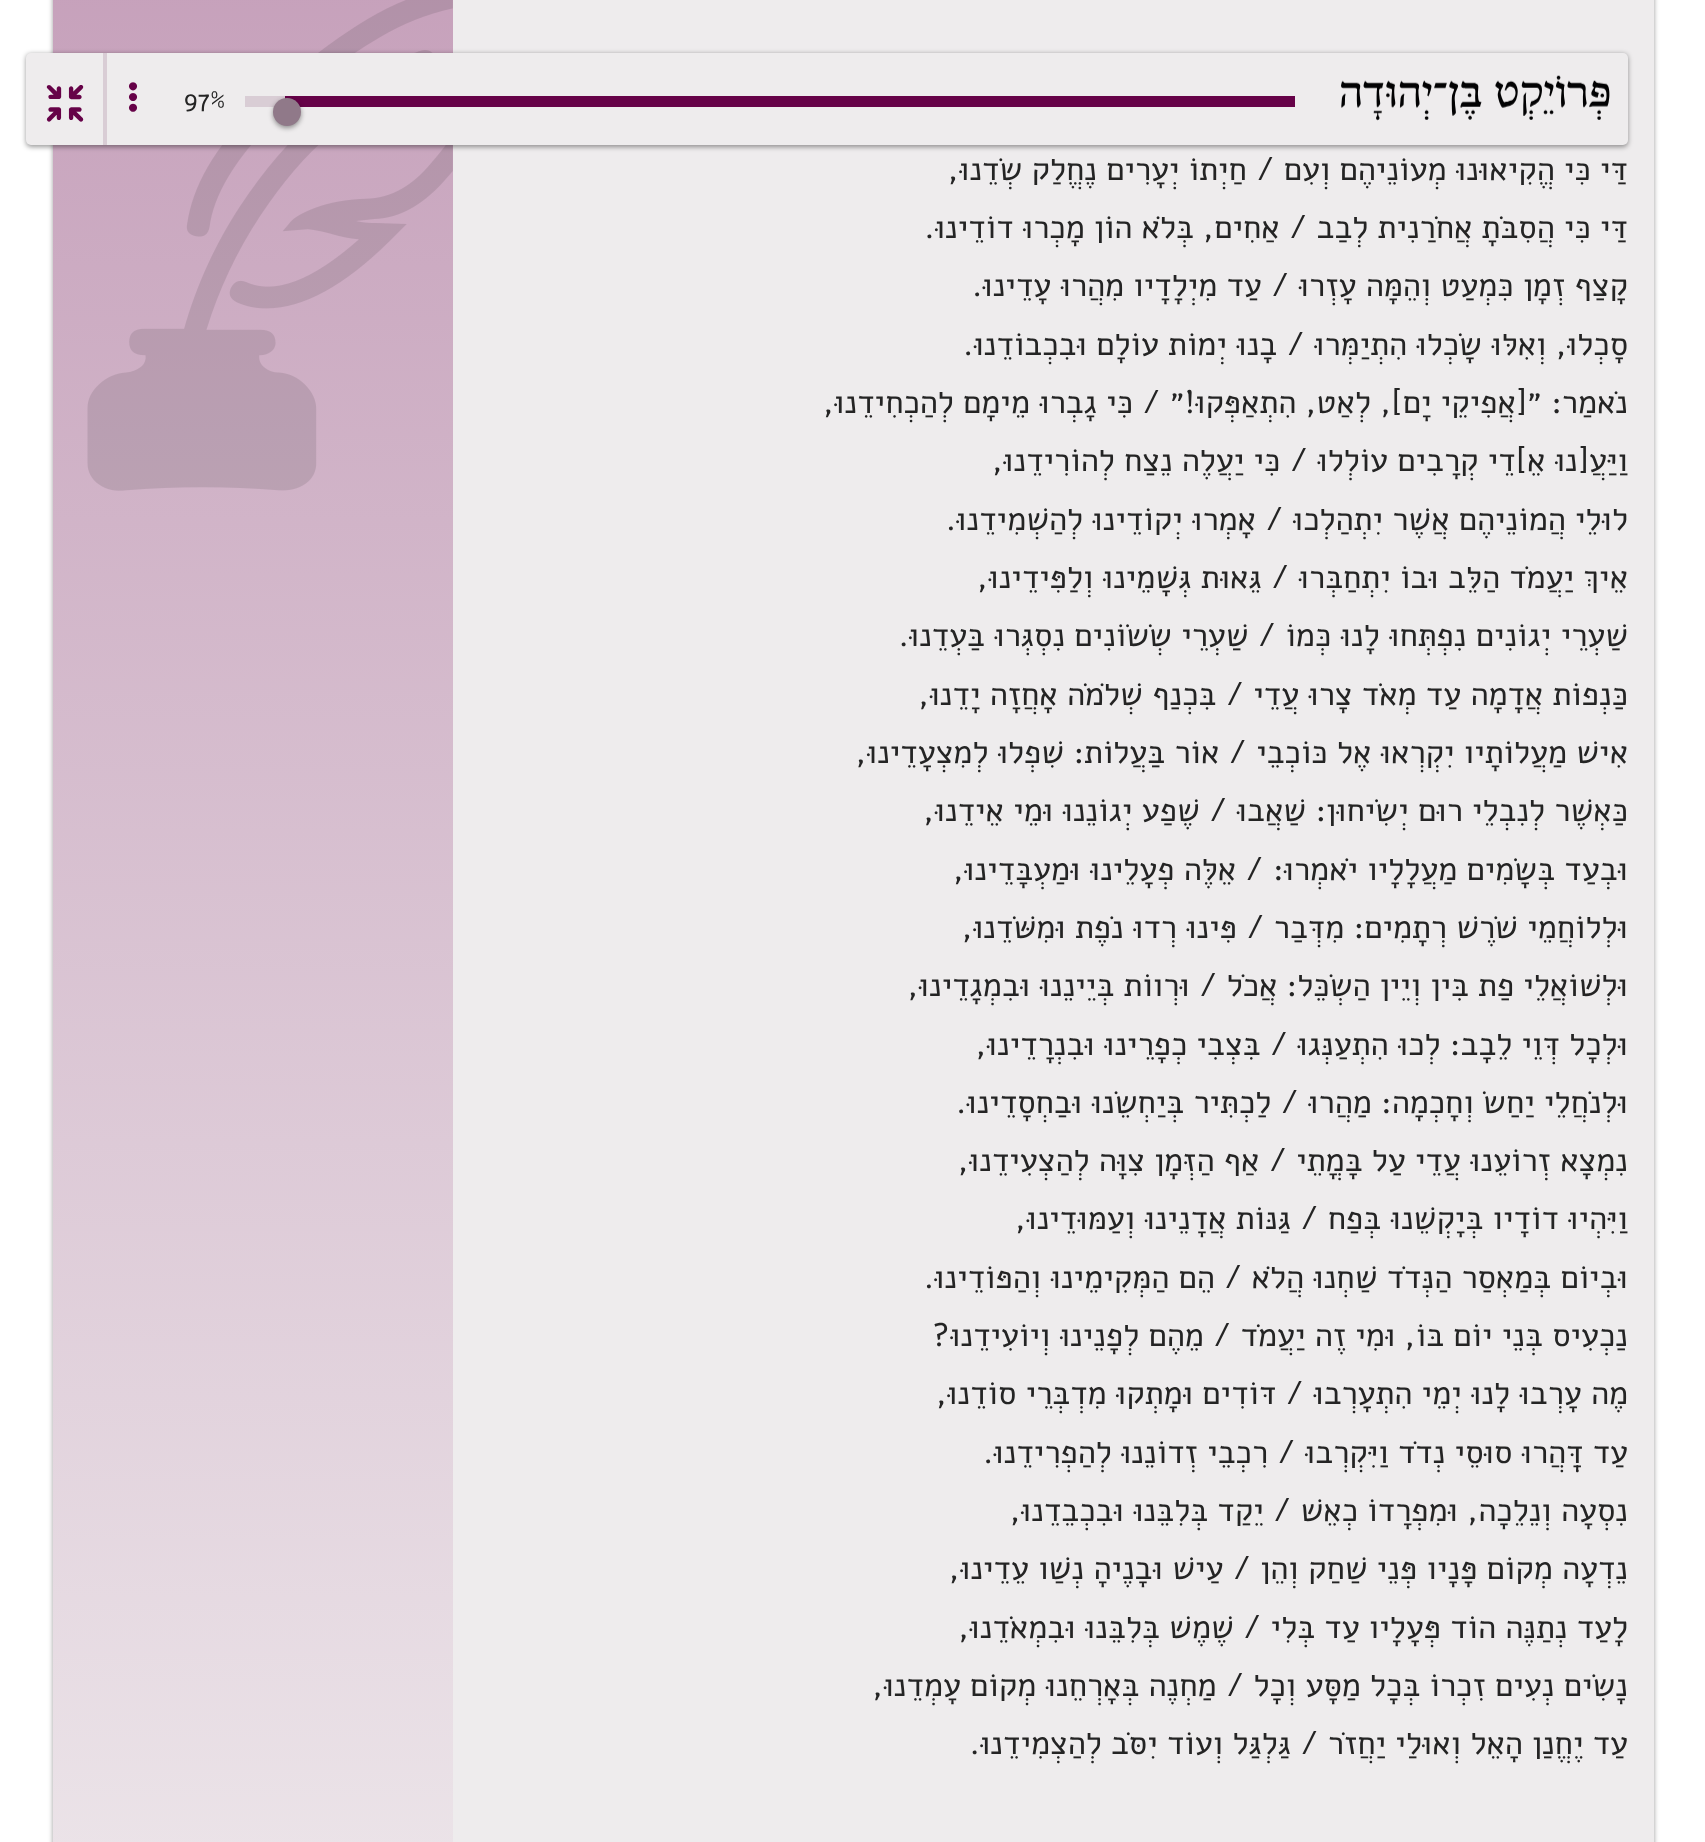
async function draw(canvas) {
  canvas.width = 1705
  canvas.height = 1842
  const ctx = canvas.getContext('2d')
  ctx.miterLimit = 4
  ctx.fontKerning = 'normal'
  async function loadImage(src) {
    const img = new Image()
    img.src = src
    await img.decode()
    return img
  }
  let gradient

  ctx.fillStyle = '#fff'
  ctx.fillRect(0, 0, 1705, 1842)
  ctx.fillStyle = '#00000066'
  ctx.filter = 'blur(2.5px)'
  ctx.beginPath()
  ctx.roundRect(53, -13, 1601, 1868, 5)
  ctx.fill()
  ctx.filter = 'none'
  ctx.fillStyle = '#eeeced'
  ctx.fillRect(453, 0, 1201, 1842)
  gradient = ctx.createLinearGradient(253, -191, 253, 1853)
  gradient.addColorStop(0, '#c39bb7')
  gradient.addColorStop(1, '#ebe3e8')
  ctx.fillStyle = gradient
  ctx.fillRect(53, 0, 400, 1842)
  ctx.drawImage(await loadImage('image1.png'), 87, 0, 366, 491)
  ctx.fillStyle = '#00000066'
  ctx.filter = 'blur(2.5px)'
  ctx.beginPath()
  ctx.roundRect(26, 54, 1602, 93, 5)
  ctx.fill()
  ctx.filter = 'none'
  ctx.fillStyle = '#eeeced'
  ctx.beginPath()
  ctx.roundRect(26, 53, 1602, 92, 5)
  ctx.fill()
  ctx.drawImage(await loadImage('image0.png'), 1341, 75, 269, 46)
  ctx.fillStyle = '#d9cdd5'
  ctx.fillRect(245, 96, 40, 11)
  ctx.fillStyle = '#660248'
  ctx.fillRect(285, 96, 1010, 11)
  ctx.fillStyle = '#00000066'
  ctx.filter = 'blur(2.5px)'
  ctx.beginPath()
  ctx.roundRect(273, 100, 28, 28, 14)
  ctx.fill()
  ctx.filter = 'none'
  ctx.fillStyle = '#907989'
  ctx.beginPath()
  ctx.arc(287, 112, 14, 0, 2 * Math.PI)
  ctx.fill()
  ctx.font = '26px Alef'
  ctx.fillStyle = '#242424'
  ctx.fillText('97%', 184, 108)
  ctx.font = '32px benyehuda'
  ctx.fillStyle = '#660248'
  ctx.fillText('Y', 117, 113)
  ctx.fillStyle = '#d9cdd5'
  ctx.fillRect(103, 53, 4, 92)
  ctx.font = '42px benyehuda'
  ctx.fillStyle = '#660248'
  ctx.fillText('.', 44, 124)
  ctx.direction = 'rtl'
  ctx.font = '32.7px Alef'
  ctx.fillStyle = '#242424'
  ctx.fillText('דַּי כִּי הֱקִיאוּנוּ מְעוֹנֵיהֶם וְעִם / חַיְתוֹ יְעָרִים נֶחֱלַק שְׂדֵנוּ,', 1628, 180)
  ctx.fillText('דַּי כִּי הֲסִבֹּתָ אֲחֹרַנִית לְבַב / אַחִים, בְּלֹא הוֹן מָכְרוּ דוֹדֵינוּ.', 1628, 238)
  ctx.fillText('קָצַף זְמָן כִּמְעַט וְהֵמָּה עָזְרוּ / עַד מִיְלָדָיו מִהֲרוּ עָדֵינוּ.', 1628, 296)
  ctx.fillText('סָכְלוּ, וְאִלּוּ שָׂכְלוּ הִתְיַמְּרוּ / בָנוּ יְמוֹת עוֹלָם וּבִכְבוֹדֵנוּ.', 1628, 355)
  ctx.fillText('נֹאמַר: ״[אֲפִיקֵי יָם], לְאַט, הִתְאַפְּקוּ!״ / כִּי גָבְרוּ מֵימָם לְהַכְחִידֵנוּ,', 1628, 413)
  ctx.fillText('וַיַּעֲ[נוּ אֵ]דֵי קְרָבִים עוֹלְלוּ / כִּי יַעֲלֶה נֵצַח לְהוֹרִידֵנוּ,', 1628, 471)
  ctx.fillText('לוּלֵי הֲמוֹנֵיהֶם אֲשֶׁר יִתְהַלְכוּ / אָמְרוּ יְקוֹדֵינוּ לְהַשְׁמִידֵנוּ.', 1628, 530)
  ctx.fillText('אֵיךְ יַעֲמֹד הַלֵּב וּבוֹ יִתְחַבְּרוּ / גֵּאוּת גְּשָׁמֵינוּ וְלַפִּידֵינוּ,', 1628, 588)
  ctx.fillText('שַׁעְרֵי יְגוֹנִים נִפְתְּחוּ לָנוּ כְּמוֹ / שַׁעְרֵי שְׂשׂוֹנִים נִסְגְּרוּ בַּעְדֵנוּ.', 1628, 646)
  ctx.fillText('כַּנְפוֹת אֲדָמָה עַד מְאֹד צָרוּ עֲדֵי / בִּכְנַף שְׁלֹמֹה אָחֲזָה יָדֵנוּ,', 1628, 705)
  ctx.fillText('אִישׁ מַעֲלוֹתָיו יִקְרְאוּ אֶל כּוֹכְבֵי / אוֹר בַּעֲלוֹת: שִׁפְלוּ לְמִצְעָדֵינוּ,', 1628, 763)
  ctx.fillText('כַּאְשֶׁר לְנִבְלֵי רוּם יְשִׂיחוּן: שַׁאֲבוּ / שֶׁפַע יְגוֹנֵנוּ וּמֵי אֵידֵנוּ,', 1628, 821)
  ctx.fillText('וּבְעַד בְּשָׂמִים מַעֲלָלָיו יֹאמְרוּ: / אֵלֶּה פְעָלֵינוּ וּמַעְבָּדֵינוּ,', 1628, 880)
  ctx.fillText('וּלְלוֹחֲמֵי שֹׁרֶשׁ רְתָמִים: מִדְּבַר / פִּינוּ רְדוּ נֹפֶת וּמִשֹּׁדֵנוּ,', 1628, 938)
  ctx.fillText('וּלְשׁוֹאֲלֵי פַת בִּין וְיֵין הַשְׂכֵּל: אֲכֹל / וּרְווֹת בְּיֵינֵנוּ וּבִמְגָדֵינוּ,', 1628, 996)
  ctx.fillText('וּלְכָל דְּוֵי לֵבָב: לְכוּ הִתְעַנְּגוּ / בִּצְבִי כְפָרֵינוּ וּבִנְרָדֵינוּ,', 1628, 1055)
  ctx.fillText('וּלְנֹחֲלֵי יַחַשׂ וְחָכְמָה: מַהֲרוּ / לַכְתִּיר בְּיַחְשֵׂנוּ וּבַחְסָדֵינוּ.', 1628, 1113)
  ctx.fillText('נִמְצָא זְרוֹעֵנוּ עֲדֵי עַל בָּמֳתֵי / אַף הַזְּמָן צִוָּה לְהַצְעִידֵנוּ,', 1628, 1171)
  ctx.fillText('וַיִּהְיוּ דוֹדָיו בְּיָקְשֵׁנוּ בְּפַח / גַּנּוֹת אֲדָנֵינוּ וְעַמּוּדֵינוּ,', 1628, 1229)
  ctx.fillText('וּבְיוֹם בְּמַאְסַר הַנְּדֹד שַׁחְנוּ הֲלֹא / הֵם הַמְּקִימֵינוּ וְהַפּוֹדֵינוּ.', 1628, 1288)
  ctx.fillText('נַכְעִיס בְּנֵי יוֹם בּוֹ, וּמִי זֶה יַעֲמֹד / מֵהֶם לְפָנֵינוּ וְיוֹעִידֵנוּ?', 1628, 1346)
  ctx.fillText('מֶה עָרְבוּ לָנוּ יְמֵי הִתְעָרְבוּ / דּוֹדִים וּמָתְקוּ מִדְבְּרֵי סוֹדֵנוּ,', 1628, 1404)
  ctx.fillText('עַד דְָּהֲרוּ סוּסֵי נְדֹד וַיִּקְרְבוּ / רִכְבֵי זְדוֹנֵנוּ לְהַפְרִידֵנוּ.', 1628, 1463)
  ctx.fillText('נִסְעָה וְנֵלֵכָה, וּמִפְרָדוֹ כְאֵשׁ / יֵקַד בְּלִבֵּנוּ וּבִכְבֵדֵנוּ,', 1628, 1521)
  ctx.fillText('נֵדְעָה מְקוֹם פָּנָיו פְּנֵי שַׁחַק וְהֵן / עַישׁ וּבָנֶיהָ נְשַׁו עֵדֵינוּ,', 1628, 1579)
  ctx.fillText('לָעַד נְתַנֶּה הוֹד פְּעָלָיו עַד בְּלִי / שֶׁמֶשׁ בְּלִבֵּנוּ וּבִמְאֹדֵנוּ,', 1628, 1638)
  ctx.fillText('נָשִׂים נְעִים זִכְרוֹ בְּכָל מַסָּע וְכָל / מַחְנֶה בְּאָרְחֵנוּ מְקוֹם עָמְדֵנוּ,', 1628, 1696)
  ctx.fillText('עַד יֶחֱנַן הָאֵל וְאוּלַי יַחֲזֹר / גַּלְגַּל וְעוֹד יִסֹּב לְהַצְמִידֵנוּ.', 1628, 1754)
}

draw(document.querySelector('canvas'))
